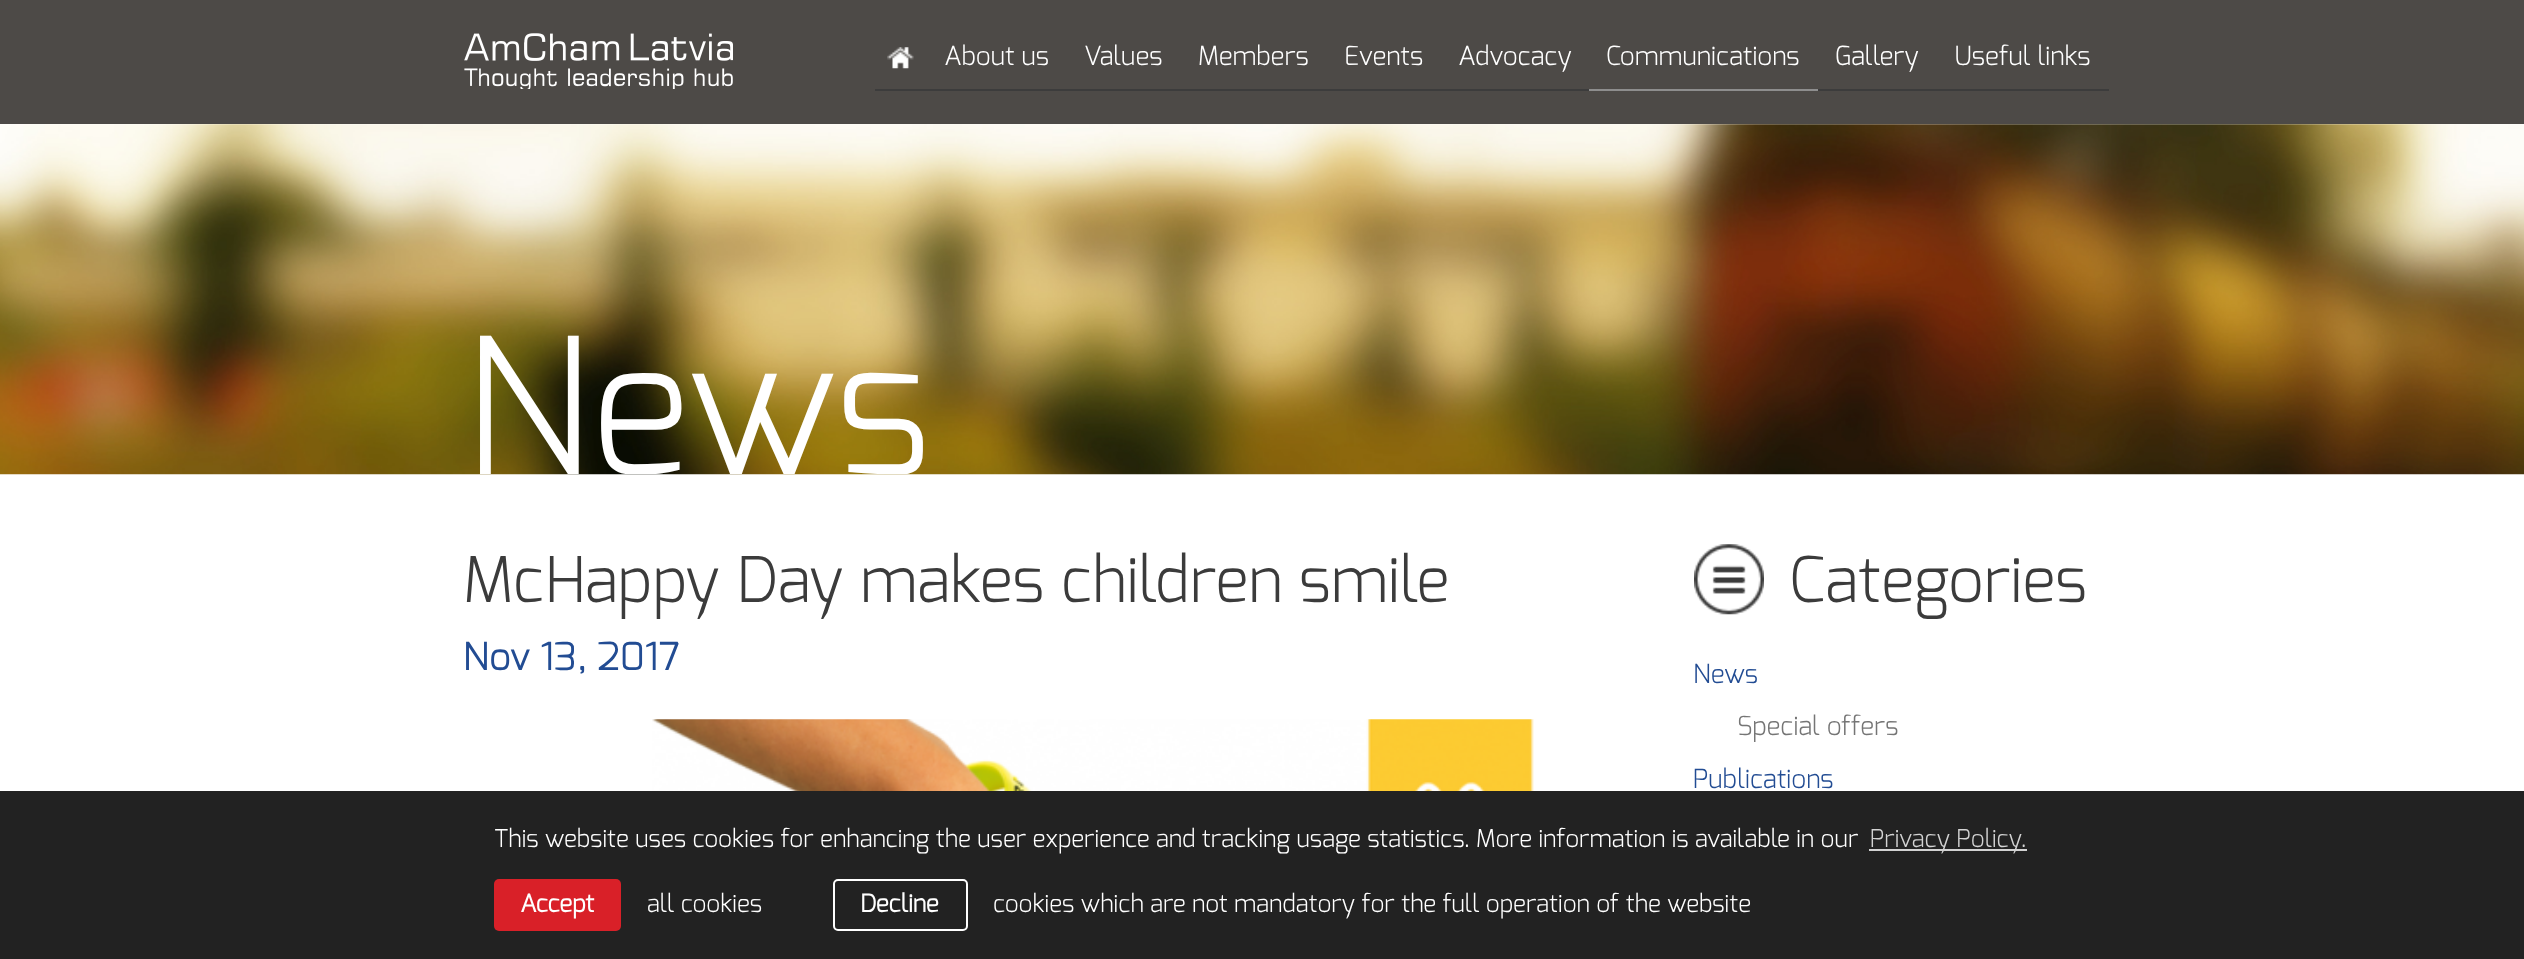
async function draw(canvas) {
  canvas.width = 2524
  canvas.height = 959
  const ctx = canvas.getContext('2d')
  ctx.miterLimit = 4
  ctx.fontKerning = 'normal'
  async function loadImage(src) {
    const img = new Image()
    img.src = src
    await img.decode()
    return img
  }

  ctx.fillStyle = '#fff'
  ctx.fillRect(0, 0, 2524, 959)
  ctx.fillStyle = '#4d4a47'
  ctx.fillRect(0, 0, 2524, 124)
  ctx.drawImage(await loadImage('image0.png'), 464, 33, 269, 56)
  ctx.font = '300 26.25px Exo'
  ctx.fillStyle = '#fff'
  ctx.fillText('About us', 944, 65)
  ctx.fillText('Values', 1084, 65)
  ctx.fillText('Members', 1198, 65)
  ctx.fillText('Events', 1344, 65)
  ctx.fillText('Advocacy', 1458, 65)
  ctx.fillStyle = '#8e8e8e'
  ctx.fillRect(1589, 89, 229, 2)
  ctx.fillStyle = '#fff'
  ctx.fillText('Communications', 1606, 65)
  ctx.fillStyle = '#3c3c3c'
  ctx.fillRect(1818, 89, 291, 2)
  ctx.fillStyle = '#fff'
  ctx.fillText('Gallery', 1835, 65)
  ctx.fillText('Useful links', 1954, 65)
  ctx.drawImage(await loadImage('image1.png'), 887, 47, 27, 22)
  ctx.fillStyle = '#3c3c3c'
  ctx.fillRect(875, 89, 714, 2)
  ctx.drawImage(await loadImage('image2.png'), 0, 124, 2524, 351)
  ctx.save()
  ctx.beginPath()
  ctx.rect(418, 124, 1691, 350)
  ctx.clip()
  ctx.font = '300 189px Exo'
  ctx.fillStyle = '#fff'
  ctx.fillText('News', 463, 474)
  ctx.restore()
  ctx.font = '300 63px Exo'
  ctx.fillStyle = '#3b3b3b'
  ctx.fillText('McHappy Day makes children smile', 463, 602)
  ctx.font = '38.5px Exo'
  ctx.fillStyle = '#224c93'
  ctx.fillText('Nov 13, 2017', 463, 670)
  ctx.drawImage(await loadImage('image3.png'), 652, 719, 882, 72)
  ctx.drawImage(await loadImage('image4.png'), 1694, 544, 70, 71)
  ctx.font = '300 63px Exo'
  ctx.fillStyle = '#3b3b3b'
  ctx.fillText('Categories', 1789, 602)
  ctx.font = '300 26.25px Exo'
  ctx.fillStyle = '#224c93'
  ctx.fillText('News', 1693, 683)
  ctx.fillStyle = '#757575'
  ctx.fillText('Special offers', 1737, 735)
  ctx.fillStyle = '#224c93'
  ctx.fillText('Publications', 1693, 788)
  ctx.fillStyle = '#222'
  ctx.fillRect(0, 791, 2524, 168)
  ctx.font = '300 24.5px Exo'
  ctx.fillStyle = '#fff'
  ctx.fillText('This website uses cookies for enhancing the user experience and tracking usage statistics. More information is available in our', 494, 847)
  ctx.fillStyle = '#d3d3d3'
  ctx.fillRect(1869, 849, 158, 2)
  ctx.fillText('Privacy Policy.', 1870, 847)
  ctx.fillStyle = '#d92028'
  ctx.beginPath()
  ctx.roundRect(494, 879, 127, 52, 5)
  ctx.fill()
  ctx.font = 'bold 24.5px Exo'
  ctx.fillStyle = '#fff'
  ctx.fillText('Accept', 520, 912)
  ctx.font = '300 24.5px Exo'
  ctx.fillText('all cookies', 647, 912)
  ctx.beginPath()
  ctx.roundRect(834, 880, 133, 50, 4)
  ctx.strokeStyle = '#fff'
  ctx.lineWidth = 2
  ctx.stroke()
  ctx.font = 'bold 24.5px Exo'
  ctx.fillText('Decline', 860, 912)
  ctx.font = '300 24.5px Exo'
  ctx.fillText('cookies which are not mandatory for the full operation of the website', 993, 912)
}

draw(document.querySelector('canvas'))
